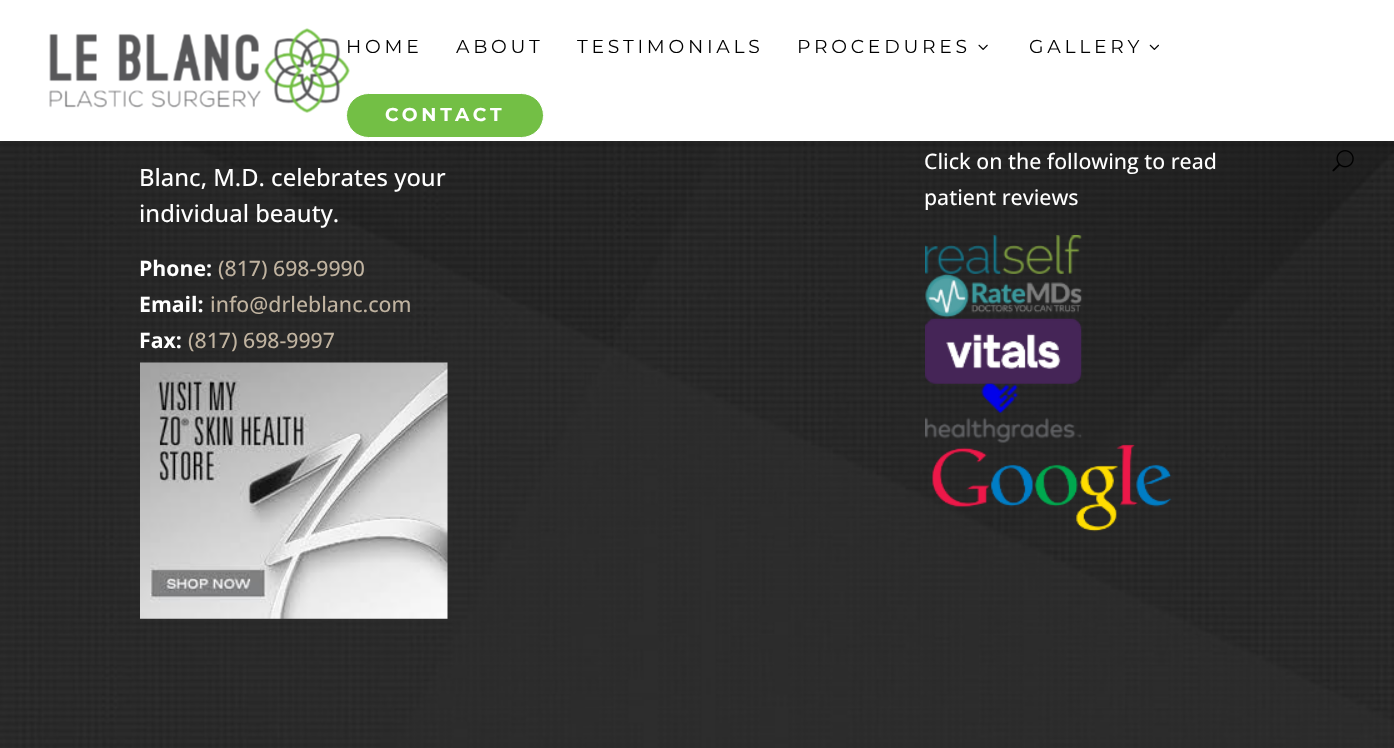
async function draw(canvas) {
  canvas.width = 1394
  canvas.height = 748
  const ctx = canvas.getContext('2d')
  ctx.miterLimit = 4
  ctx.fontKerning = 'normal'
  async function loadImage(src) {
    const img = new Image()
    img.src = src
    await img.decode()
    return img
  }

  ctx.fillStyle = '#fff'
  ctx.fillRect(0, 0, 1394, 748)
  ctx.drawImage(await loadImage('image4.png'), 0, 141, 1394, 607)
  ctx.fillStyle = '#0000001a'
  ctx.filter = 'blur(4.5px)'
  ctx.beginPath()
  ctx.rect(0, 0, 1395, 141)
  ctx.fill()
  ctx.filter = 'none'
  ctx.fillStyle = '#fff'
  ctx.fillRect(0, 0, 1394, 141)
  ctx.drawImage(await loadImage('image0.png'), 49, 28, 301, 85)
  ctx.letterSpacing = '3.75px'
  ctx.font = '18.75px Montserrat'
  ctx.fillStyle = '#000'
  ctx.fillText('HOME', 346, 53)
  ctx.fillText('ABOUT', 456, 53)
  ctx.fillText('TESTIMONIALS', 577, 53)
  ctx.fillText('PROCEDURES', 797, 53)
  ctx.drawImage(await loadImage('image1.png'), 978, 44, 10, 6)
  ctx.fillText('GALLERY', 1029, 53)
  ctx.drawImage(await loadImage('image2.png'), 1149, 44, 10, 6)
  ctx.fillStyle = '#73bf45'
  ctx.beginPath()
  ctx.roundRect(346.5, 93.5, 197, 44, 22)
  ctx.fill()
  ctx.strokeStyle = '#fff'
  ctx.stroke()
  ctx.font = 'bold 18.75px Montserrat'
  ctx.fillStyle = '#fff'
  ctx.fillText('CONTACT', 385, 121)
  ctx.drawImage(await loadImage('image3.png'), 1332, 150, 22, 22)
  ctx.letterSpacing = '0px'
  ctx.font = '500 23.75px Open Sans'
  ctx.fillText('Blanc, M.D. celebrates your', 139, 186)
  ctx.fillText('individual beauty.', 139, 222)
  ctx.font = 'bold 21.25px Open Sans'
  ctx.fillText('Phone:', 139, 276)
  ctx.font = '500 21.25px Open Sans'
  ctx.fillStyle = '#c0b3a0'
  ctx.fillText('(817) 698-9990', 218, 276)
  ctx.font = 'bold 21.25px Open Sans'
  ctx.fillStyle = '#fff'
  ctx.fillText('Email:', 139, 312)
  ctx.font = '500 21.25px Open Sans'
  ctx.fillStyle = '#c0b3a0'
  ctx.fillText('info@drleblanc.com', 210, 312)
  ctx.font = 'bold 21.25px Open Sans'
  ctx.fillStyle = '#fff'
  ctx.fillText('Fax:', 139, 348)
  ctx.font = '500 21.25px Open Sans'
  ctx.fillStyle = '#c0b3a0'
  ctx.fillText('(817) 698-9997', 188, 348)
  ctx.drawImage(await loadImage('image5.png'), 140, 362, 308, 257)
  ctx.fillStyle = '#fff'
  ctx.fillText('Click on the following to read', 924, 169)
  ctx.fillText('patient reviews', 924, 205)
  ctx.drawImage(await loadImage('image6.png'), 925, 235, 157, 39)
  ctx.drawImage(await loadImage('image7.png'), 925, 273, 157, 45)
  ctx.drawImage(await loadImage('image8.png'), 925, 318, 157, 66)
  ctx.drawImage(await loadImage('image9.png'), 925, 383, 157, 60)
  ctx.drawImage(await loadImage('image10.png'), 932, 444, 240, 88)
}

draw(document.querySelector('canvas'))
